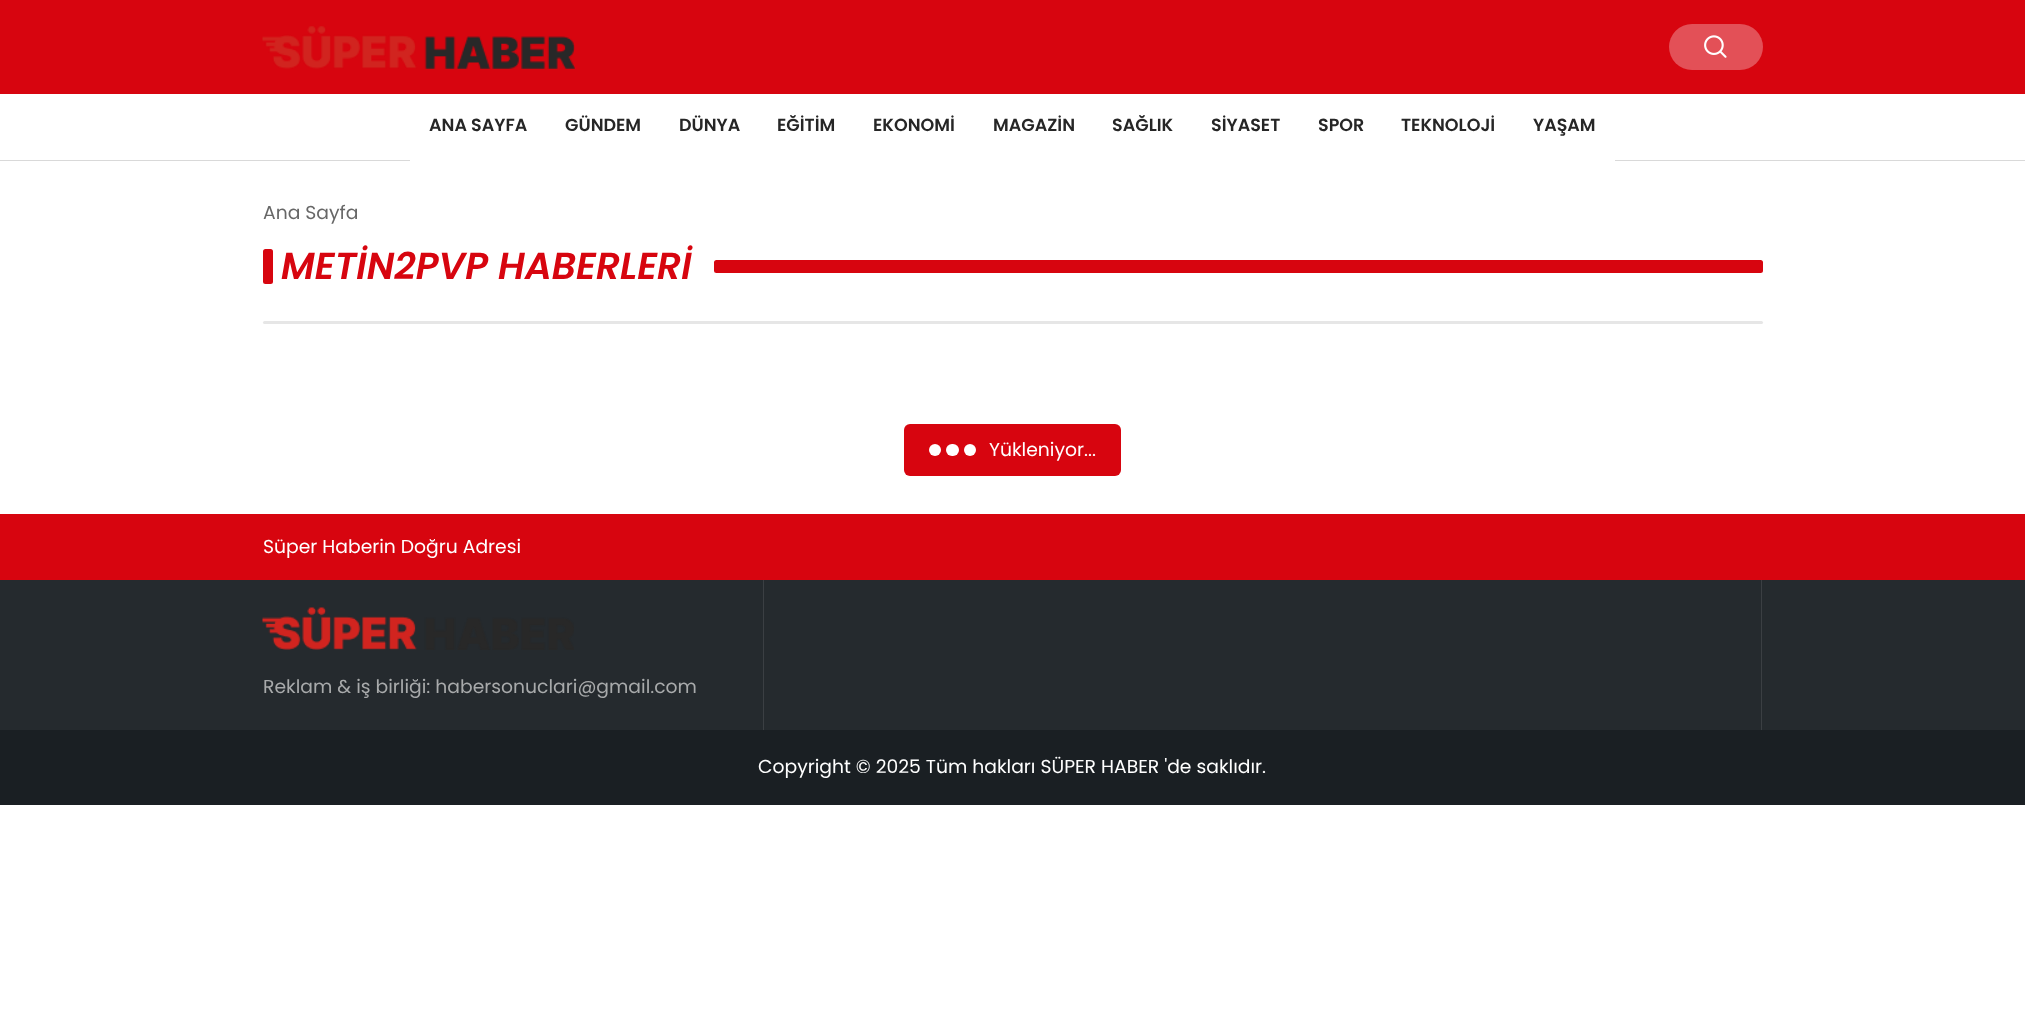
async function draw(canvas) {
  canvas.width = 2025
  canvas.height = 1020
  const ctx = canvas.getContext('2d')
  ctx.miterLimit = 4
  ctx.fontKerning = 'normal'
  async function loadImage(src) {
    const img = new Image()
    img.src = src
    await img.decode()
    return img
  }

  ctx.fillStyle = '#fff'
  ctx.fillRect(0, 0, 2025, 1020)
  ctx.fillStyle = '#d7050f'
  ctx.fillRect(0, 0, 2025, 94)
  ctx.drawImage(await loadImage('image0.png'), 262, 26, 313, 43)
  ctx.fillStyle = '#e35057'
  ctx.beginPath()
  ctx.roundRect(1669, 24, 94, 46, 23)
  ctx.fill()
  ctx.drawImage(await loadImage('image1.png'), 1704, 35, 23, 23)
  ctx.fillStyle = '#d9d9d9'
  ctx.fillRect(0, 160, 2025, 1)
  ctx.fillStyle = '#fff'
  ctx.fillRect(410, 160, 1205, 1)
  ctx.font = '600 17.5px Poppins'
  ctx.fillStyle = '#262626'
  ctx.fillText('ANA SAYFA', 429, 131)
  ctx.fillText('GÜNDEM', 565, 131)
  ctx.fillText('DÜNYA', 679, 131)
  ctx.fillText('EĞİTİM', 777, 131)
  ctx.fillText('EKONOMİ', 873, 131)
  ctx.fillText('MAGAZİN', 993, 131)
  ctx.fillText('SAĞLIK', 1112, 131)
  ctx.fillText('SİYASET', 1211, 131)
  ctx.fillText('SPOR', 1318, 131)
  ctx.fillText('TEKNOLOJİ', 1401, 131)
  ctx.fillText('YAŞAM', 1533, 131)
  ctx.font = '18.75px Poppins'
  ctx.fillStyle = '#676767'
  ctx.fillText('Ana Sayfa', 263, 219)
  ctx.fillStyle = '#d7050f'
  ctx.beginPath()
  ctx.roundRect(263, 249, 10, 35, 2.5)
  ctx.fill()
  ctx.font = 'italic 600 37.5px Poppins'
  ctx.fillText('METİN2PVP HABERLERİ', 281, 279)
  ctx.beginPath()
  ctx.roundRect(714, 260, 1049, 13, 2.5)
  ctx.fill()
  ctx.fillStyle = '#e6e6e6'
  ctx.beginPath()
  ctx.roundRect(263, 321, 1500, 3, 1.5)
  ctx.fill()
  ctx.fillStyle = '#d7050f'
  ctx.beginPath()
  ctx.roundRect(904, 424, 217, 52, 6)
  ctx.fill()
  ctx.fillStyle = '#fff'
  ctx.beginPath()
  ctx.arc(935, 450, 6, 0, 2 * Math.PI)
  ctx.fill()
  ctx.beginPath()
  ctx.roundRect(946, 444, 13, 12, 6)
  ctx.fill()
  ctx.beginPath()
  ctx.arc(970, 450, 6, 0, 2 * Math.PI)
  ctx.fill()
  ctx.font = '18.75px Poppins'
  ctx.fillText('Yükleniyor...', 989, 456)
  ctx.fillStyle = '#d7050f'
  ctx.fillRect(0, 514, 2025, 66)
  ctx.fillStyle = '#fff'
  ctx.fillText('Süper Haberin Doğru Adresi', 263, 553)
  ctx.fillStyle = '#252a2e'
  ctx.fillRect(0, 580, 2025, 150)
  ctx.drawImage(await loadImage('image2.png'), 262, 607, 312, 43)
  ctx.fillStyle = '#a8aaab'
  ctx.fillText('Reklam & iş birliği: habersonuclari@gmail.com', 263, 693)
  ctx.fillStyle = '#3b3f43'
  ctx.fillRect(1761, 580, 1, 150)
  ctx.fillRect(763, 580, 1, 150)
  ctx.fillStyle = '#1a1f23'
  ctx.fillRect(0, 730, 2025, 75)
  ctx.fillStyle = '#fff'
  ctx.fillText('Copyright © 2025 Tüm hakları SÜPER HABER \'de saklıdır.', 758, 773)
}

draw(document.querySelector('canvas'))
